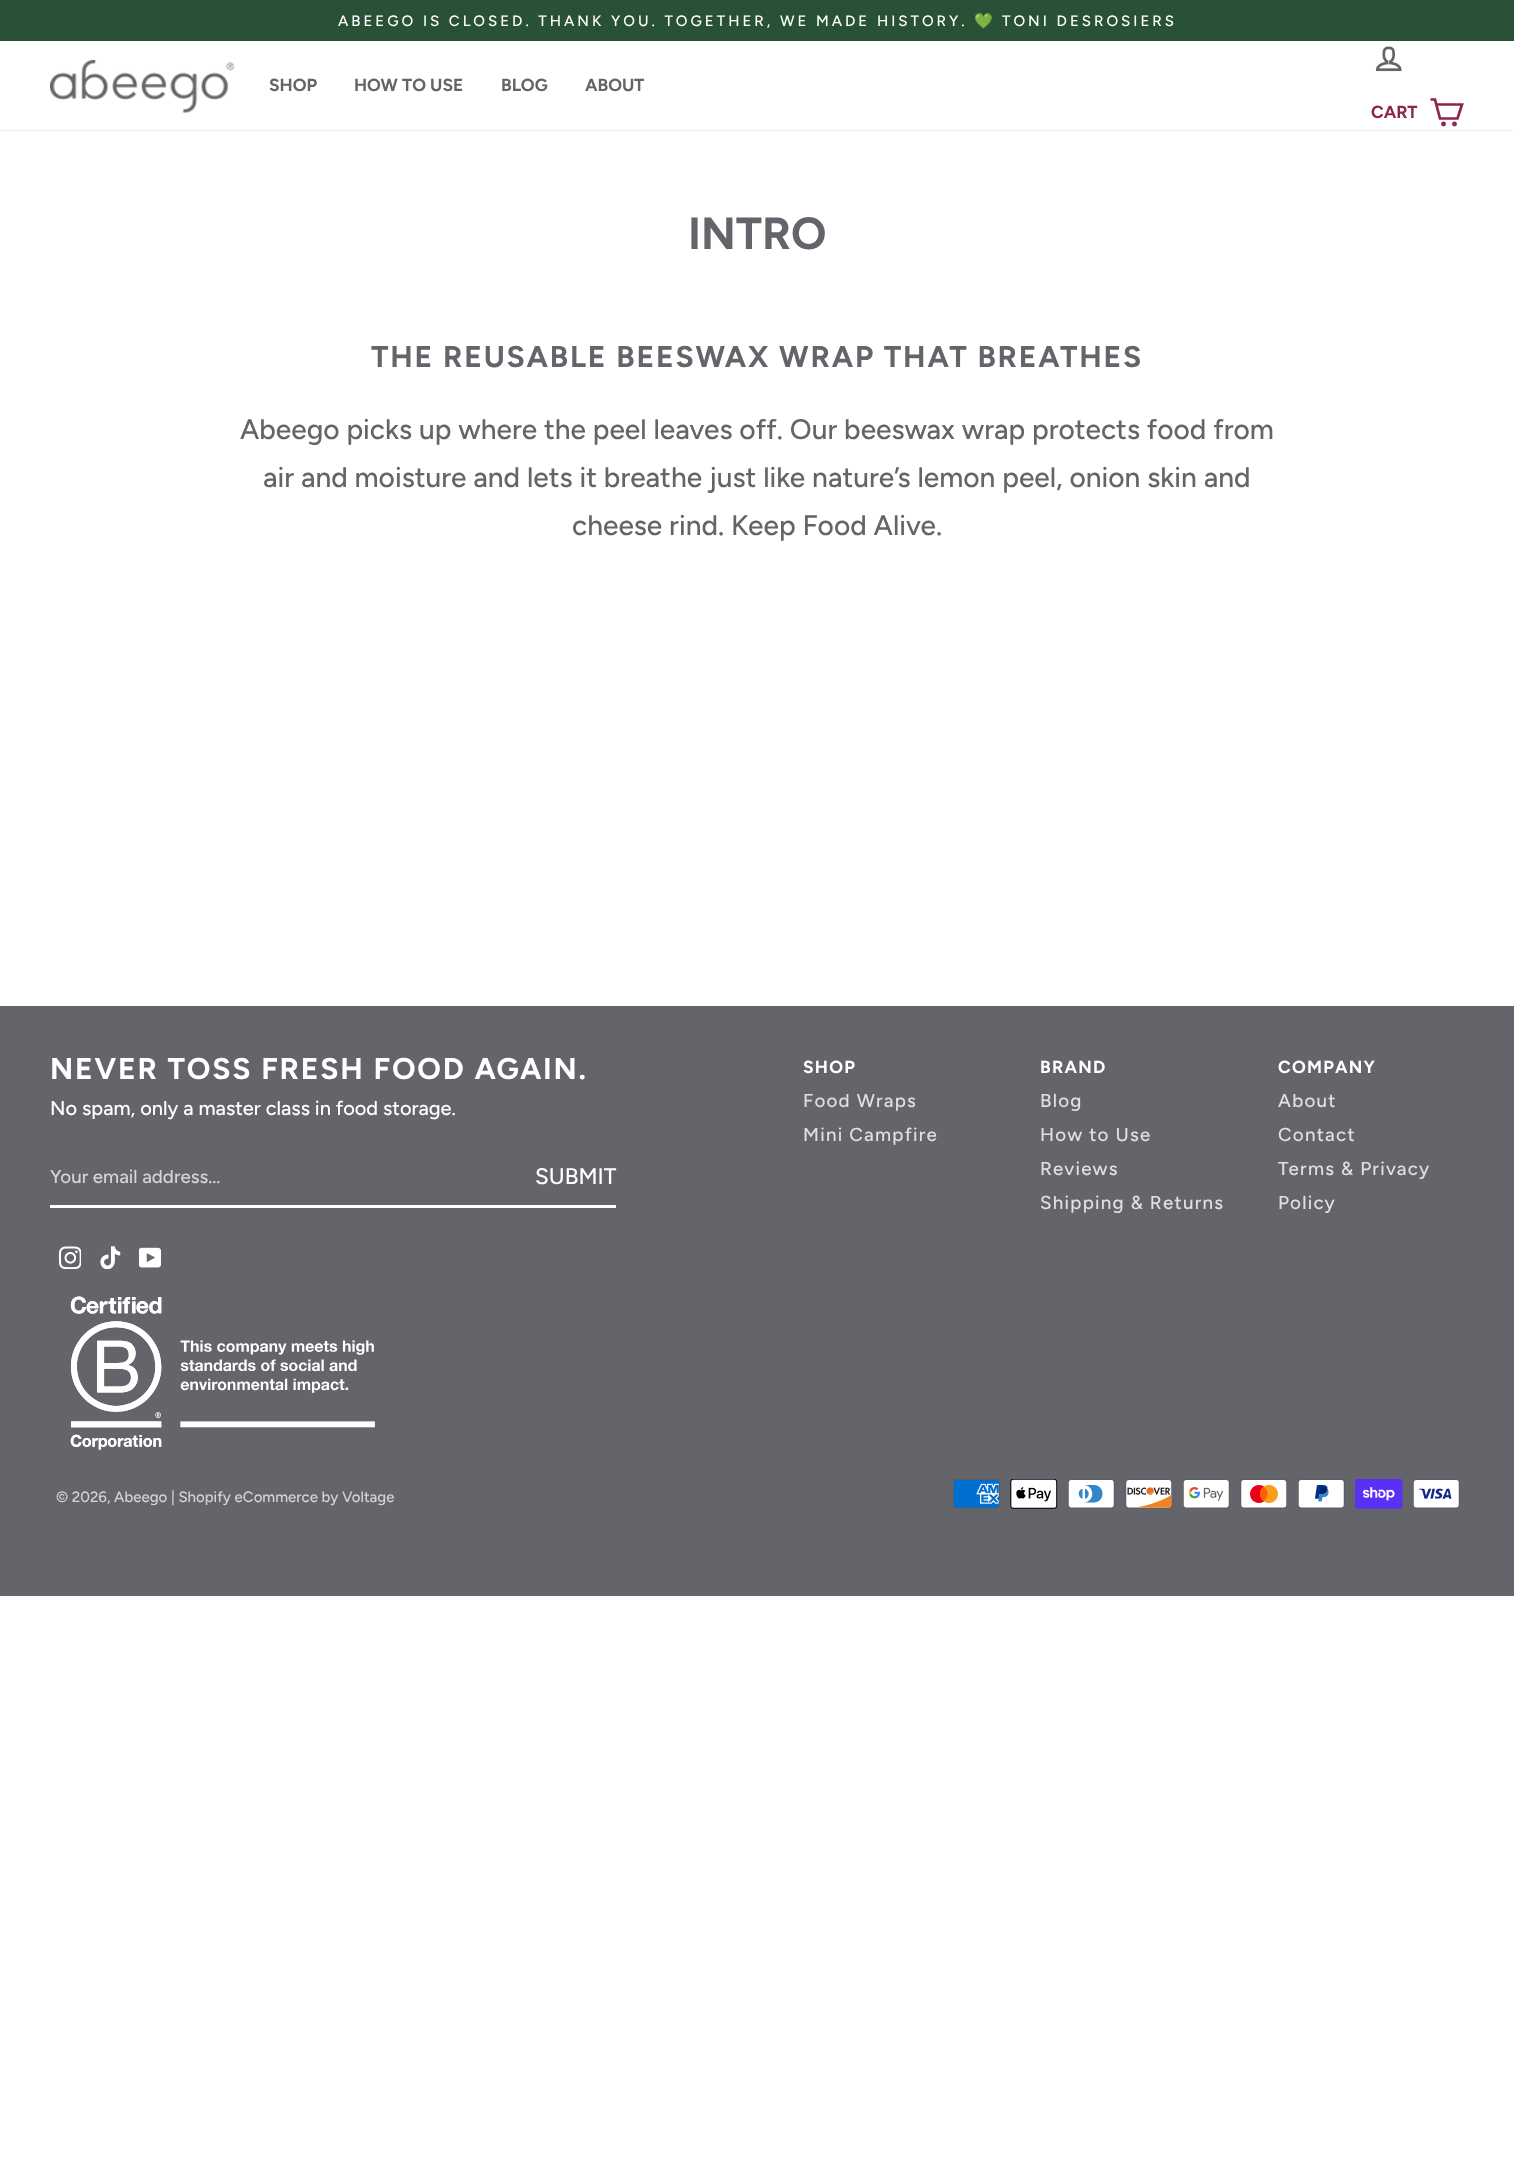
async function draw(canvas) {
  canvas.width = 1514
  canvas.height = 2157
  const ctx = canvas.getContext('2d')
  ctx.miterLimit = 4
  ctx.fontKerning = 'normal'
  async function loadImage(src) {
    const img = new Image()
    img.src = src
    await img.decode()
    return img
  }

  ctx.fillStyle = '#fff'
  ctx.fillRect(0, 0, 1514, 2157)
  ctx.fillStyle = '#295135'
  ctx.fillRect(0, 0, 1514, 41)
  ctx.letterSpacing = '3px'
  ctx.font = '500 15px Figtree'
  ctx.fillStyle = '#fff'
  ctx.fillText('ABEEGO IS CLOSED. THANK YOU. TOGETHER, WE MADE HISTORY.', 338, 26)
  ctx.font = '15px Noto Color Emoji'
  ctx.fillText('💚', 974, 26)
  ctx.font = '500 15px Figtree'
  ctx.fillText('TONI DESROSIERS', 1002, 26)
  ctx.fillStyle = '#eee'
  ctx.fillRect(0, 130, 1514, 1)
  ctx.drawImage(await loadImage('image0.png'), 50, 60, 184, 53)
  ctx.letterSpacing = '0px'
  ctx.font = 'bold 17.5px Figtree'
  ctx.fillStyle = '#64656a'
  ctx.fillText('SHOP', 269, 91)
  ctx.fillText('HOW TO USE', 354, 91)
  ctx.fillText('BLOG', 501, 91)
  ctx.fillText('ABOUT', 585, 91)
  ctx.drawImage(await loadImage('image1.png'), 1375, 46, 27, 26)
  ctx.fillStyle = '#8b254f'
  ctx.fillText('CART', 1371, 118)
  ctx.beginPath()
  ctx.moveTo(1436.5, 104.5)
  ctx.lineTo(1462, 104.5)
  ctx.lineTo(1457.5, 118.5)
  ctx.lineTo(1440, 118.5)
  ctx.lineTo(1435, 99.5)
  ctx.lineTo(1430.5, 99.5)
  ctx.strokeStyle = '#8b254f'
  ctx.lineWidth = 2.7
  ctx.stroke()
  ctx.beginPath()
  ctx.arc(1443.5, 124, 1.1, 0, 2 * Math.PI)
  ctx.stroke()
  ctx.beginPath()
  ctx.arc(1454.5, 124, 1.1, 0, 2 * Math.PI)
  ctx.stroke()
  ctx.font = 'bold 45px Figtree'
  ctx.fillStyle = '#64656a'
  ctx.fillText('INTRO', 688, 249)
  ctx.letterSpacing = '1.8px'
  ctx.font = 'bold 30px Figtree'
  ctx.fillText('THE REUSABLE BEESWAX WRAP THAT BREATHES', 371, 367)
  ctx.letterSpacing = '0px'
  ctx.font = '500 28.1px Figtree'
  ctx.fillText('Abeego picks up where the peel leaves off. Our beeswax wrap protects food from', 240, 439)
  ctx.fillText('air and moisture and lets it breathe just like nature’s lemon peel, onion skin and', 263, 487)
  ctx.fillText('cheese rind. Keep Food Alive.', 572, 535)
  ctx.fillRect(0, 1006, 1514, 590)
  ctx.letterSpacing = '1.8px'
  ctx.font = 'bold 30px Figtree'
  ctx.fillStyle = '#fff'
  ctx.fillText('NEVER TOSS FRESH FOOD AGAIN.', 50, 1079)
  ctx.letterSpacing = '0px'
  ctx.font = '500 20px Figtree'
  ctx.fillText('No spam, only a master class in food storage.', 50, 1115)
  ctx.fillRect(50, 1205, 566, 3)
  ctx.font = '500 18.75px Figtree'
  ctx.fillStyle = '#d4d4d5'
  ctx.fillText('Your email address...', 50, 1183)
  ctx.font = '500 22.5px Figtree'
  ctx.fillStyle = '#fff'
  ctx.fillText('SUBMIT', 535, 1184)
  ctx.drawImage(await loadImage('image2.png'), 59, 1246, 22, 23)
  ctx.drawImage(await loadImage('image3.png'), 100, 1246, 21, 23)
  ctx.drawImage(await loadImage('image4.png'), 139, 1247, 22, 21)
  ctx.letterSpacing = '1.25px'
  ctx.font = 'bold 17.5px Figtree'
  ctx.fillText('SHOP', 803, 1073)
  ctx.font = '500 18.75px Figtree'
  ctx.fillStyle = '#e0e0e1'
  ctx.fillText('Food Wraps', 803, 1107)
  ctx.fillText('Mini Campfire', 803, 1141)
  ctx.font = 'bold 17.5px Figtree'
  ctx.fillStyle = '#fff'
  ctx.fillText('BRAND', 1040, 1073)
  ctx.font = '500 18.75px Figtree'
  ctx.fillStyle = '#e0e0e1'
  ctx.fillText('Blog', 1040, 1107)
  ctx.fillText('How to Use', 1040, 1141)
  ctx.fillText('Reviews', 1040, 1175)
  ctx.fillText('Shipping & Returns', 1040, 1209)
  ctx.font = 'bold 17.5px Figtree'
  ctx.fillStyle = '#fff'
  ctx.fillText('COMPANY', 1278, 1073)
  ctx.font = '500 18.75px Figtree'
  ctx.fillStyle = '#e0e0e1'
  ctx.fillText('About', 1278, 1107)
  ctx.fillText('Contact', 1278, 1141)
  ctx.fillText('Terms & Privacy', 1278, 1175)
  ctx.fillText('Policy', 1278, 1209)
  ctx.drawImage(await loadImage('image5.png'), 70, 1296, 305, 154)
  ctx.drawImage(await loadImage('image6.png'), 953, 1479, 47, 30)
  ctx.drawImage(await loadImage('image7.png'), 1010, 1479, 48, 30)
  ctx.drawImage(await loadImage('image8.png'), 1068, 1479, 47, 30)
  ctx.drawImage(await loadImage('image9.png'), 1125, 1479, 47, 30)
  ctx.drawImage(await loadImage('image10.png'), 1183, 1479, 47, 30)
  ctx.drawImage(await loadImage('image11.png'), 1240, 1479, 47, 30)
  ctx.drawImage(await loadImage('image12.png'), 1298, 1479, 47, 30)
  ctx.drawImage(await loadImage('image13.png'), 1355, 1479, 48, 30)
  ctx.drawImage(await loadImage('image14.png'), 1413, 1479, 47, 30)
  ctx.letterSpacing = '0px'
  ctx.font = '500 15px Figtree'
  ctx.fillStyle = '#d4d4d5'
  ctx.fillText('© 2026, Abeego | Shopify eCommerce by Voltage', 56, 1502)
}

draw(document.querySelector('canvas'))
